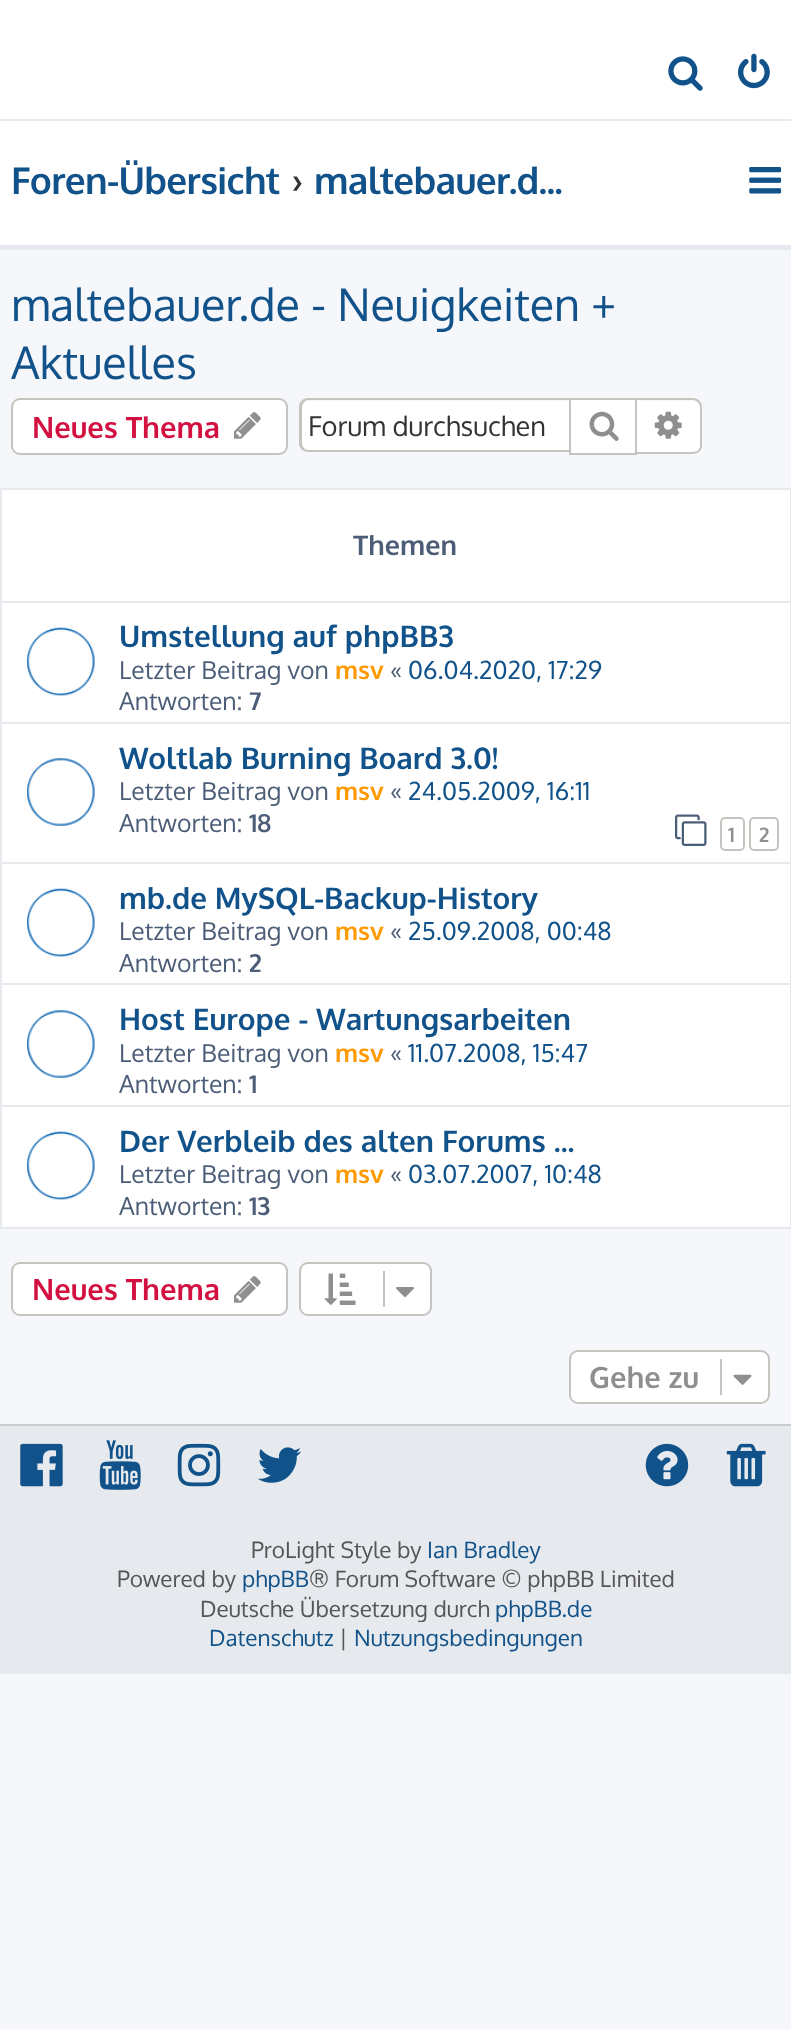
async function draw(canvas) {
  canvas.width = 791
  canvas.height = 2029
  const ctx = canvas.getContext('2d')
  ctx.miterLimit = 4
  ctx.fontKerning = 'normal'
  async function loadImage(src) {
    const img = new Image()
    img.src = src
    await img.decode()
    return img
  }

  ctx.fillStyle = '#f5f7fa'
  ctx.fillRect(0, 0, 791, 2029)
  ctx.fillStyle = '#fff'
  ctx.fillRect(0, 0, 791, 245)
  ctx.fillStyle = '#e6e9ed'
  ctx.fillRect(0, 119, 791, 2)
  ctx.drawImage(await loadImage('image0.png'), 668, 56, 35, 35)
  ctx.drawImage(await loadImage('image1.png'), 738, 53, 32, 36)
  ctx.fillRect(0, 245, 791, 5)
  ctx.letterSpacing = '-0.7px'
  ctx.font = 'bold 37px Oxygen'
  ctx.fillStyle = '#105289'
  ctx.fillText('Foren-Übersicht', 11, 194)
  ctx.letterSpacing = '0px'
  ctx.fillStyle = '#333'
  ctx.fillText('›', 292, 194)
  ctx.letterSpacing = '-0.7px'
  ctx.fillStyle = '#105289'
  ctx.fillText('maltebauer.d...', 314, 194)
  ctx.drawImage(await loadImage('image2.png'), 749, 167, 33, 27)
  ctx.letterSpacing = '0px'
  ctx.font = '45px Oxygen'
  ctx.fillText('maltebauer.de - Neuigkeiten +', 11, 321)
  ctx.fillText('Aktuelles', 11, 379)
  ctx.fillStyle = '#fff'
  ctx.beginPath()
  ctx.roundRect(12, 399, 275, 55, 8)
  ctx.fill()
  ctx.strokeStyle = '#c7c3bf'
  ctx.lineWidth = 2
  ctx.stroke()
  ctx.font = 'bold 29.25px Oxygen'
  ctx.fillStyle = '#d31141'
  ctx.fillText('Neues Thema', 32, 438)
  ctx.drawImage(await loadImage('image3.png'), 234, 412, 27, 27)
  ctx.fillStyle = '#fff'
  ctx.beginPath()
  ctx.roundRect(302, 401, 267, 49, [7, 0, 0, 7])
  ctx.fill()
  ctx.fillStyle = '#c7c3bf'
  ctx.beginPath()
  ctx.moveTo(308, 398)
  ctx.lineTo(569, 398)
  ctx.lineTo(569, 452)
  ctx.lineTo(308, 452)
  ctx.bezierCurveTo(303, 452, 299, 448, 299, 443)
  ctx.lineTo(299, 407)
  ctx.bezierCurveTo(299, 402, 303, 398, 308, 398)
  ctx.closePath()
  ctx.moveTo(308, 400)
  ctx.lineTo(569, 400)
  ctx.lineTo(569, 450)
  ctx.lineTo(308, 450)
  ctx.bezierCurveTo(305, 450, 302, 447, 302, 443)
  ctx.lineTo(302, 407)
  ctx.bezierCurveTo(302, 404, 305, 400, 308, 400)
  ctx.closePath()
  ctx.fill('evenodd')
  ctx.font = '27.25px Oxygen'
  ctx.fillStyle = '#333'
  ctx.fillText('Forum durchsuchen', 308, 436)
  ctx.fillStyle = '#fff'
  ctx.beginPath()
  ctx.rect(570, 399, 66, 55)
  ctx.fill()
  ctx.stroke()
  ctx.drawImage(await loadImage('image4.png'), 589, 411, 30, 30)
  ctx.beginPath()
  ctx.roundRect(637, 401, 63, 51, [0, 7, 7, 0])
  ctx.fill()
  ctx.fillStyle = '#c7c3bf'
  ctx.beginPath()
  ctx.moveTo(637, 398)
  ctx.lineTo(693, 398)
  ctx.bezierCurveTo(698, 398, 702, 402, 702, 407)
  ctx.lineTo(702, 446)
  ctx.bezierCurveTo(702, 450, 698, 454, 693, 454)
  ctx.lineTo(637, 454)
  ctx.closePath()
  ctx.moveTo(637, 400)
  ctx.lineTo(693, 400)
  ctx.bezierCurveTo(697, 400, 700, 404, 700, 407)
  ctx.lineTo(700, 446)
  ctx.bezierCurveTo(700, 449, 697, 452, 693, 452)
  ctx.lineTo(637, 452)
  ctx.closePath()
  ctx.fill('evenodd')
  ctx.drawImage(await loadImage('image5.png'), 654, 411, 28, 28)
  ctx.fillStyle = '#fff'
  ctx.beginPath()
  ctx.rect(1, 489, 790, 739)
  ctx.fill()
  ctx.strokeStyle = '#e6e9ed'
  ctx.stroke()
  ctx.font = 'bold 27px Oxygen'
  ctx.fillStyle = '#4c5d77'
  ctx.fillText('Themen', 353, 555)
  ctx.fillStyle = '#e6e9ed'
  ctx.fillRect(2, 601, 788, 2)
  ctx.drawImage(await loadImage('image6.png'), 27, 627, 68, 69)
  ctx.font = 'bold 29.75px Oxygen'
  ctx.fillStyle = '#105289'
  ctx.fillText('Umstellung auf phpBB3', 119, 647)
  ctx.font = '24.75px Oxygen'
  ctx.fillStyle = '#4c5d77'
  ctx.fillText('Letzter Beitrag von', 119, 679)
  ctx.font = 'bold 24.75px Oxygen'
  ctx.fillStyle = '#f90'
  ctx.fillText('msv', 335, 679)
  ctx.font = '24.75px Oxygen'
  ctx.fillStyle = '#4c5d77'
  ctx.fillText('«', 390, 679)
  ctx.fillStyle = '#105289'
  ctx.fillText('06.04.2020, 17:29', 408, 679)
  ctx.fillStyle = '#4c5d77'
  ctx.fillText('Antworten:', 119, 710)
  ctx.font = 'bold 24.75px Oxygen'
  ctx.fillText('7', 249, 710)
  ctx.fillStyle = '#e6e9ed'
  ctx.fillRect(2, 722, 788, 2)
  ctx.drawImage(await loadImage('image7.png'), 27, 758, 68, 68)
  ctx.font = 'bold 29.75px Oxygen'
  ctx.fillStyle = '#105289'
  ctx.fillText('Woltlab Burning Board 3.0!', 119, 769)
  ctx.font = '24.75px Oxygen'
  ctx.fillStyle = '#4c5d77'
  ctx.fillText('Letzter Beitrag von', 119, 800)
  ctx.font = 'bold 24.75px Oxygen'
  ctx.fillStyle = '#f90'
  ctx.fillText('msv', 335, 800)
  ctx.font = '24.75px Oxygen'
  ctx.fillStyle = '#4c5d77'
  ctx.fillText('«', 390, 800)
  ctx.fillStyle = '#105289'
  ctx.fillText('24.05.2009, 16:11', 408, 800)
  ctx.fillStyle = '#4c5d77'
  ctx.fillText('Antworten:', 119, 832)
  ctx.font = 'bold 24.75px Oxygen'
  ctx.fillText('18', 249, 832)
  ctx.drawImage(await loadImage('image8.png'), 675, 814, 32, 32)
  ctx.beginPath()
  ctx.roundRect(721, 818, 23, 32, 4)
  ctx.strokeStyle = '#c7c3bf'
  ctx.stroke()
  ctx.font = 'bold 20px Oxygen'
  ctx.fillStyle = '#8f8f8f'
  ctx.fillText('1', 728, 842)
  ctx.beginPath()
  ctx.roundRect(750, 818, 28, 32, 4)
  ctx.stroke()
  ctx.fillText('2', 759, 842)
  ctx.fillStyle = '#e6e9ed'
  ctx.fillRect(2, 862, 788, 2)
  ctx.drawImage(await loadImage('image6.png'), 27, 888, 68, 69)
  ctx.font = 'bold 29.75px Oxygen'
  ctx.fillStyle = '#105289'
  ctx.fillText('mb.de MySQL-Backup-History', 119, 909)
  ctx.font = '24.75px Oxygen'
  ctx.fillStyle = '#4c5d77'
  ctx.fillText('Letzter Beitrag von', 119, 940)
  ctx.font = 'bold 24.75px Oxygen'
  ctx.fillStyle = '#f90'
  ctx.fillText('msv', 335, 940)
  ctx.font = '24.75px Oxygen'
  ctx.fillStyle = '#4c5d77'
  ctx.fillText('«', 390, 940)
  ctx.fillStyle = '#105289'
  ctx.fillText('25.09.2008, 00:48', 408, 940)
  ctx.fillStyle = '#4c5d77'
  ctx.fillText('Antworten:', 119, 972)
  ctx.font = 'bold 24.75px Oxygen'
  ctx.fillText('2', 249, 972)
  ctx.fillStyle = '#e6e9ed'
  ctx.fillRect(2, 983, 788, 2)
  ctx.drawImage(await loadImage('image7.png'), 27, 1010, 68, 68)
  ctx.font = 'bold 29.75px Oxygen'
  ctx.fillStyle = '#105289'
  ctx.fillText('Host Europe - Wartungsarbeiten', 119, 1030)
  ctx.font = '24.75px Oxygen'
  ctx.fillStyle = '#4c5d77'
  ctx.fillText('Letzter Beitrag von', 119, 1062)
  ctx.font = 'bold 24.75px Oxygen'
  ctx.fillStyle = '#f90'
  ctx.fillText('msv', 335, 1062)
  ctx.font = '24.75px Oxygen'
  ctx.fillStyle = '#4c5d77'
  ctx.fillText('«', 390, 1062)
  ctx.fillStyle = '#105289'
  ctx.fillText('11.07.2008, 15:47', 408, 1062)
  ctx.fillStyle = '#4c5d77'
  ctx.fillText('Antworten:', 119, 1093)
  ctx.font = 'bold 24.75px Oxygen'
  ctx.fillText('1', 249, 1093)
  ctx.fillStyle = '#e6e9ed'
  ctx.fillRect(2, 1105, 788, 2)
  ctx.drawImage(await loadImage('image9.png'), 27, 1131, 68, 69)
  ctx.font = 'bold 29.75px Oxygen'
  ctx.fillStyle = '#105289'
  ctx.fillText('Der Verbleib des alten Forums ...', 119, 1152)
  ctx.font = '24.75px Oxygen'
  ctx.fillStyle = '#4c5d77'
  ctx.fillText('Letzter Beitrag von', 119, 1183)
  ctx.font = 'bold 24.75px Oxygen'
  ctx.fillStyle = '#f90'
  ctx.fillText('msv', 335, 1183)
  ctx.font = '24.75px Oxygen'
  ctx.fillStyle = '#4c5d77'
  ctx.fillText('«', 390, 1183)
  ctx.fillStyle = '#105289'
  ctx.fillText('03.07.2007, 10:48', 408, 1183)
  ctx.fillStyle = '#4c5d77'
  ctx.fillText('Antworten:', 119, 1215)
  ctx.font = 'bold 24.75px Oxygen'
  ctx.fillText('13', 249, 1215)
  ctx.fillStyle = '#fff'
  ctx.beginPath()
  ctx.roundRect(12, 1263, 275, 52, 8)
  ctx.fill()
  ctx.stroke()
  ctx.font = 'bold 29.25px Oxygen'
  ctx.fillStyle = '#d31141'
  ctx.fillText('Neues Thema', 32, 1300)
  ctx.drawImage(await loadImage('image3.png'), 234, 1276, 27, 27)
  ctx.fillStyle = '#fff'
  ctx.beginPath()
  ctx.roundRect(300, 1263, 131, 52, 8)
  ctx.fill()
  ctx.stroke()
  ctx.drawImage(await loadImage('image10.png'), 324, 1273, 32, 32)
  ctx.fillStyle = '#c7c3bf'
  ctx.fillRect(383, 1271, 2, 36)
  ctx.drawImage(await loadImage('image11.png'), 396, 1287, 18, 11)
  ctx.fillStyle = '#fff'
  ctx.beginPath()
  ctx.roundRect(570, 1351, 199, 52, 8)
  ctx.fill()
  ctx.stroke()
  ctx.fillStyle = '#8f8f8f'
  ctx.fillText('Gehe zu', 589, 1388)
  ctx.fillStyle = '#c7c3bf'
  ctx.fillRect(720, 1359, 2, 36)
  ctx.drawImage(await loadImage('image12.png'), 733, 1374, 19, 11)
  ctx.fillStyle = '#e6e9ed'
  ctx.fillRect(0, 1426, 791, 248)
  ctx.fillStyle = '#ccc'
  ctx.fillRect(0, 1424, 791, 2)
  ctx.drawImage(await loadImage('image13.png'), 20, 1443, 43, 44)
  ctx.drawImage(await loadImage('image14.png'), 99, 1440, 42, 50)
  ctx.drawImage(await loadImage('image15.png'), 177, 1443, 44, 44)
  ctx.drawImage(await loadImage('image16.png'), 257, 1447, 45, 36)
  ctx.drawImage(await loadImage('image17.png'), 645, 1443, 44, 44)
  ctx.drawImage(await loadImage('image18.png'), 726, 1443, 40, 44)
  ctx.font = '22.5px Oxygen'
  ctx.fillStyle = '#555'
  ctx.fillText('ProLight Style by', 251, 1558)
  ctx.fillStyle = '#105289'
  ctx.fillText('Ian Bradley', 427, 1558)
  ctx.fillStyle = '#555'
  ctx.fillText('Powered by', 117, 1587)
  ctx.fillStyle = '#105289'
  ctx.fillText('phpBB', 242, 1587)
  ctx.fillStyle = '#555'
  ctx.fillText('® Forum Software © phpBB Limited', 309, 1587)
  ctx.save()
  ctx.beginPath()
  ctx.rect(45, 1593, 702, 29)
  ctx.clip()
  ctx.fillText('Deutsche Übersetzung durch', 200, 1617)
  ctx.fillStyle = '#105289'
  ctx.fillText('phpBB.de', 495, 1617)
  ctx.restore()
  ctx.fillStyle = '#105289'
  ctx.fillText('Datenschutz', 209, 1646)
  ctx.fillStyle = '#555'
  ctx.fillText('|', 339, 1646)
  ctx.fillStyle = '#105289'
  ctx.fillText('Nutzungsbedingungen', 354, 1646)
}

draw(document.querySelector('canvas'))
